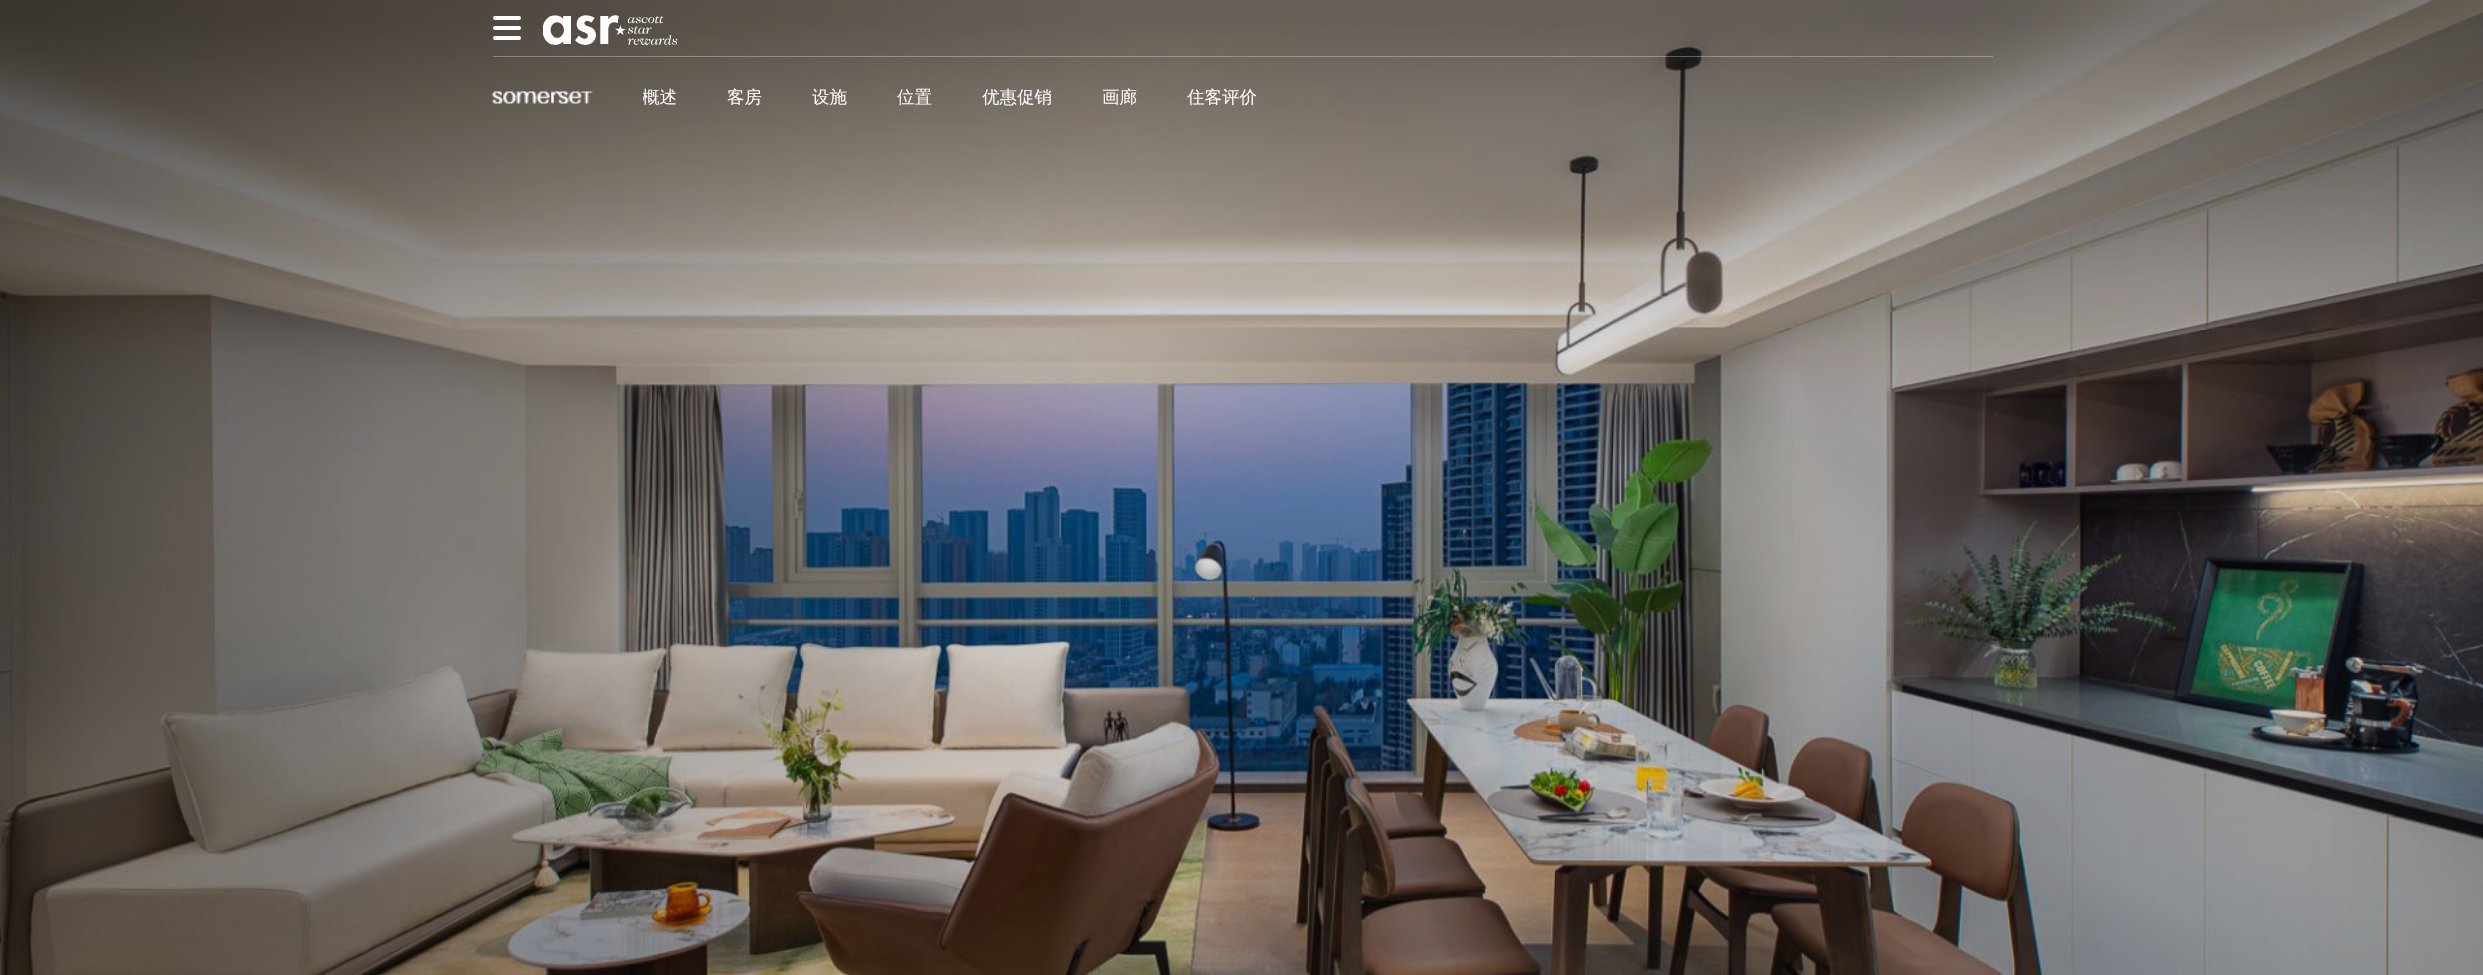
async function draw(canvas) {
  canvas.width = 2483
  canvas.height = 975
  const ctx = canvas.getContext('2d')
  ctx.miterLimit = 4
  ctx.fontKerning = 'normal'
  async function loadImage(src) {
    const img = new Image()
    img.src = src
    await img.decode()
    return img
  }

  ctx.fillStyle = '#fff'
  ctx.fillRect(0, 0, 2483, 975)
  ctx.drawImage(await loadImage('image0.png'), 0, 0, 2483, 975)
  ctx.beginPath()
  ctx.roundRect(493, 16, 28, 4, 2)
  ctx.fill()
  ctx.beginPath()
  ctx.roundRect(493, 26, 28, 4, 2)
  ctx.fill()
  ctx.beginPath()
  ctx.roundRect(493, 36, 28, 4, 2)
  ctx.fill()
  ctx.drawImage(await loadImage('image1.png'), 543, 15, 135, 30)
  ctx.fillStyle = '#ffffff4d'
  ctx.fillRect(493, 56, 1500, 1)
  ctx.drawImage(await loadImage('image2.png'), 492, 91, 101, 13)
  ctx.save()
  ctx.beginPath()
  ctx.rect(643, 65, 615, 66)
  ctx.clip()
  ctx.font = '500 17.5px WenQuanYi Zen Hei'
  ctx.fillStyle = '#fff'
  ctx.fillText('概述', 642, 103)
  ctx.restore()
  ctx.font = '500 17.5px WenQuanYi Zen Hei'
  ctx.fillStyle = '#fff'
  ctx.fillText('客房', 727, 103)
  ctx.fillText('设施', 812, 103)
  ctx.fillText('位置', 897, 103)
  ctx.fillText('优惠促销', 982, 103)
  ctx.fillText('画廊', 1102, 103)
  ctx.fillText('住客评价', 1187, 103)
}

draw(document.querySelector('canvas'))
